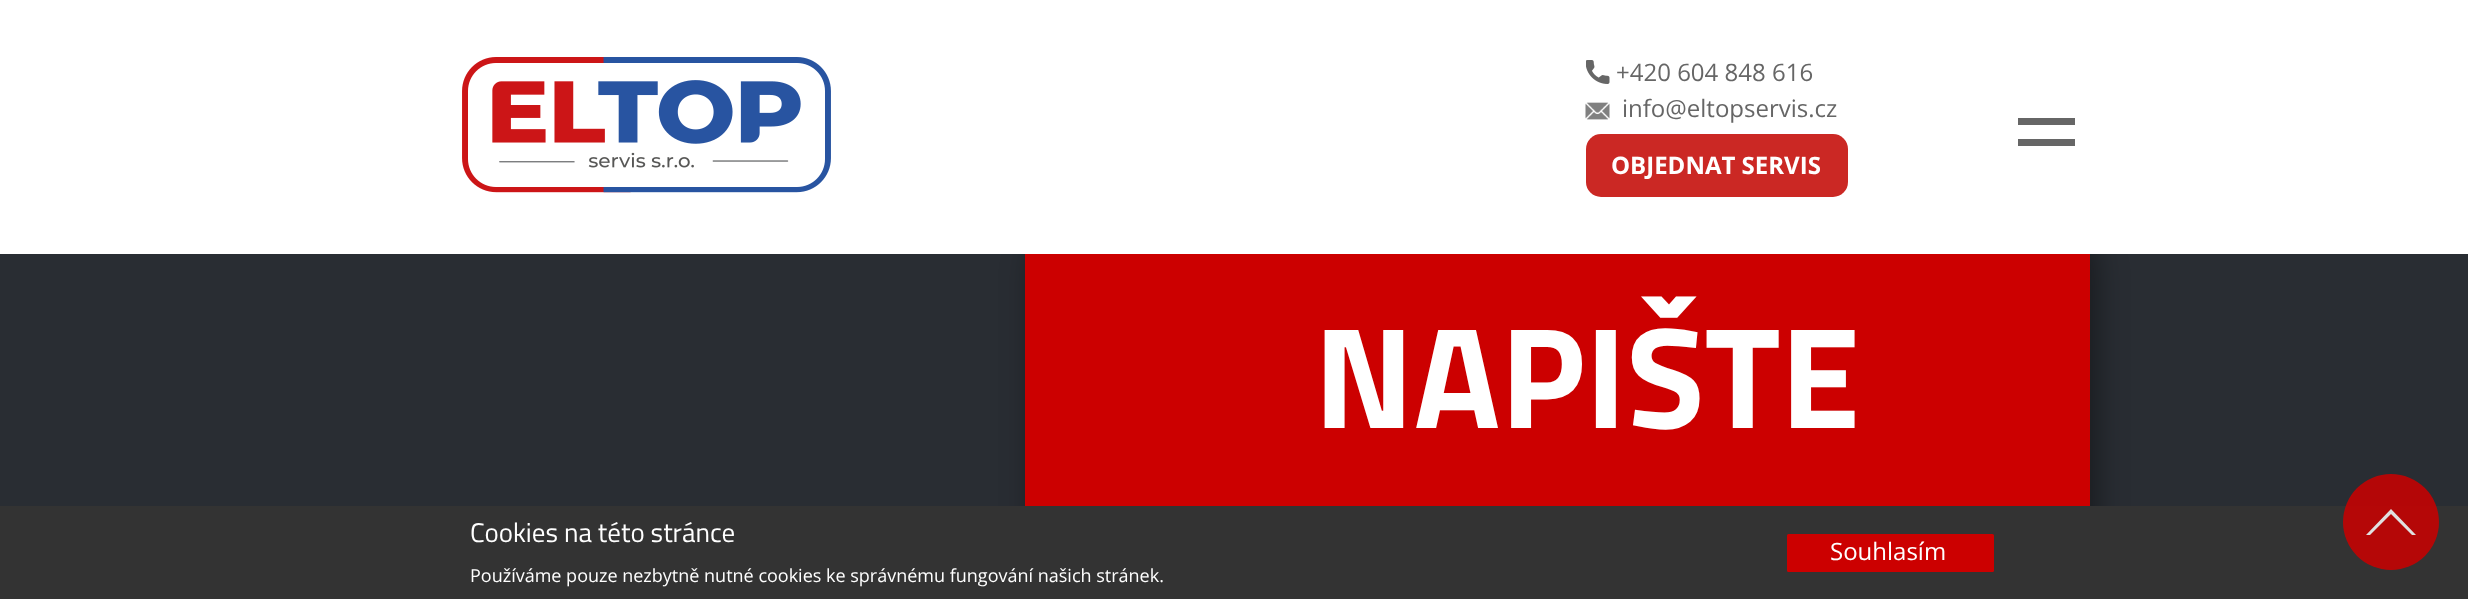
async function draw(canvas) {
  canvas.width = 2468
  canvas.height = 599
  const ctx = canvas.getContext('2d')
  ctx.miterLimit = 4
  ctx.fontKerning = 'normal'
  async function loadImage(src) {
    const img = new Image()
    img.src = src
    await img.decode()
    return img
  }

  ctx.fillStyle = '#292d33'
  ctx.fillRect(0, 0, 2468, 599)
  ctx.fillStyle = '#00000066'
  ctx.filter = 'blur(15px)'
  ctx.beginPath()
  ctx.roundRect(1032, 200, 1065, 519, 75)
  ctx.fill()
  ctx.filter = 'none'
  ctx.fillStyle = '#fff'
  ctx.fillRect(0, 0, 2468, 254)
  ctx.drawImage(await loadImage('image0.png'), 462, 57, 369, 136)
  ctx.drawImage(await loadImage('image1.png'), 1586, 60, 24, 24)
  ctx.font = '24px Open Sans'
  ctx.fillStyle = '#666'
  ctx.fillText('+420 604 848 616', 1616, 81)
  ctx.drawImage(await loadImage('image2.png'), 1585, 102, 25, 18)
  ctx.fillText('info@eltopservis.cz', 1622, 117)
  ctx.fillStyle = '#cb2824'
  ctx.beginPath()
  ctx.roundRect(1586, 134, 262, 63, 15)
  ctx.fill()
  ctx.font = 'bold 24px Open Sans'
  ctx.fillStyle = '#fff'
  ctx.fillText('OBJEDNAT SERVIS', 1611, 174)
  ctx.fillStyle = '#666'
  ctx.fillRect(2018, 118, 57, 7)
  ctx.fillRect(2018, 139, 57, 7)
  ctx.fillStyle = '#c00'
  ctx.fillRect(1025, 254, 1065, 252)
  ctx.font = 'bold 144px Titillium Web'
  ctx.fillStyle = '#fff'
  ctx.fillText('NAPIŠTE', 1314, 428)
  ctx.fillStyle = '#333'
  ctx.fillRect(0, 506, 2468, 93)
  ctx.font = '27px Titillium Web'
  ctx.fillStyle = '#fff'
  ctx.fillText('Cookies na této stránce', 470, 542)
  ctx.font = '18px Open Sans'
  ctx.fillText('Používáme pouze nezbytně nutné cookies ke správnému fungování našich stránek.', 470, 582)
  ctx.fillStyle = '#c00'
  ctx.beginPath()
  ctx.roundRect(1787, 534, 207, 38, 1.5)
  ctx.fill()
  ctx.font = '24px Open Sans'
  ctx.fillStyle = '#fff'
  ctx.fillText('Souhlasím', 1830, 560)
  ctx.fillStyle = '#cc0000d9'
  ctx.beginPath()
  ctx.arc(2391, 522, 48, 0, 2 * Math.PI)
  ctx.fill()
  ctx.fillStyle = '#e0e0e0'
  ctx.beginPath()
  ctx.moveTo(2391, 514)
  ctx.lineTo(2412, 535)
  ctx.lineTo(2416, 535)
  ctx.lineTo(2391, 509)
  ctx.lineTo(2366, 535)
  ctx.lineTo(2370, 535)
  ctx.closePath()
  ctx.fill()
}

draw(document.querySelector('canvas'))
